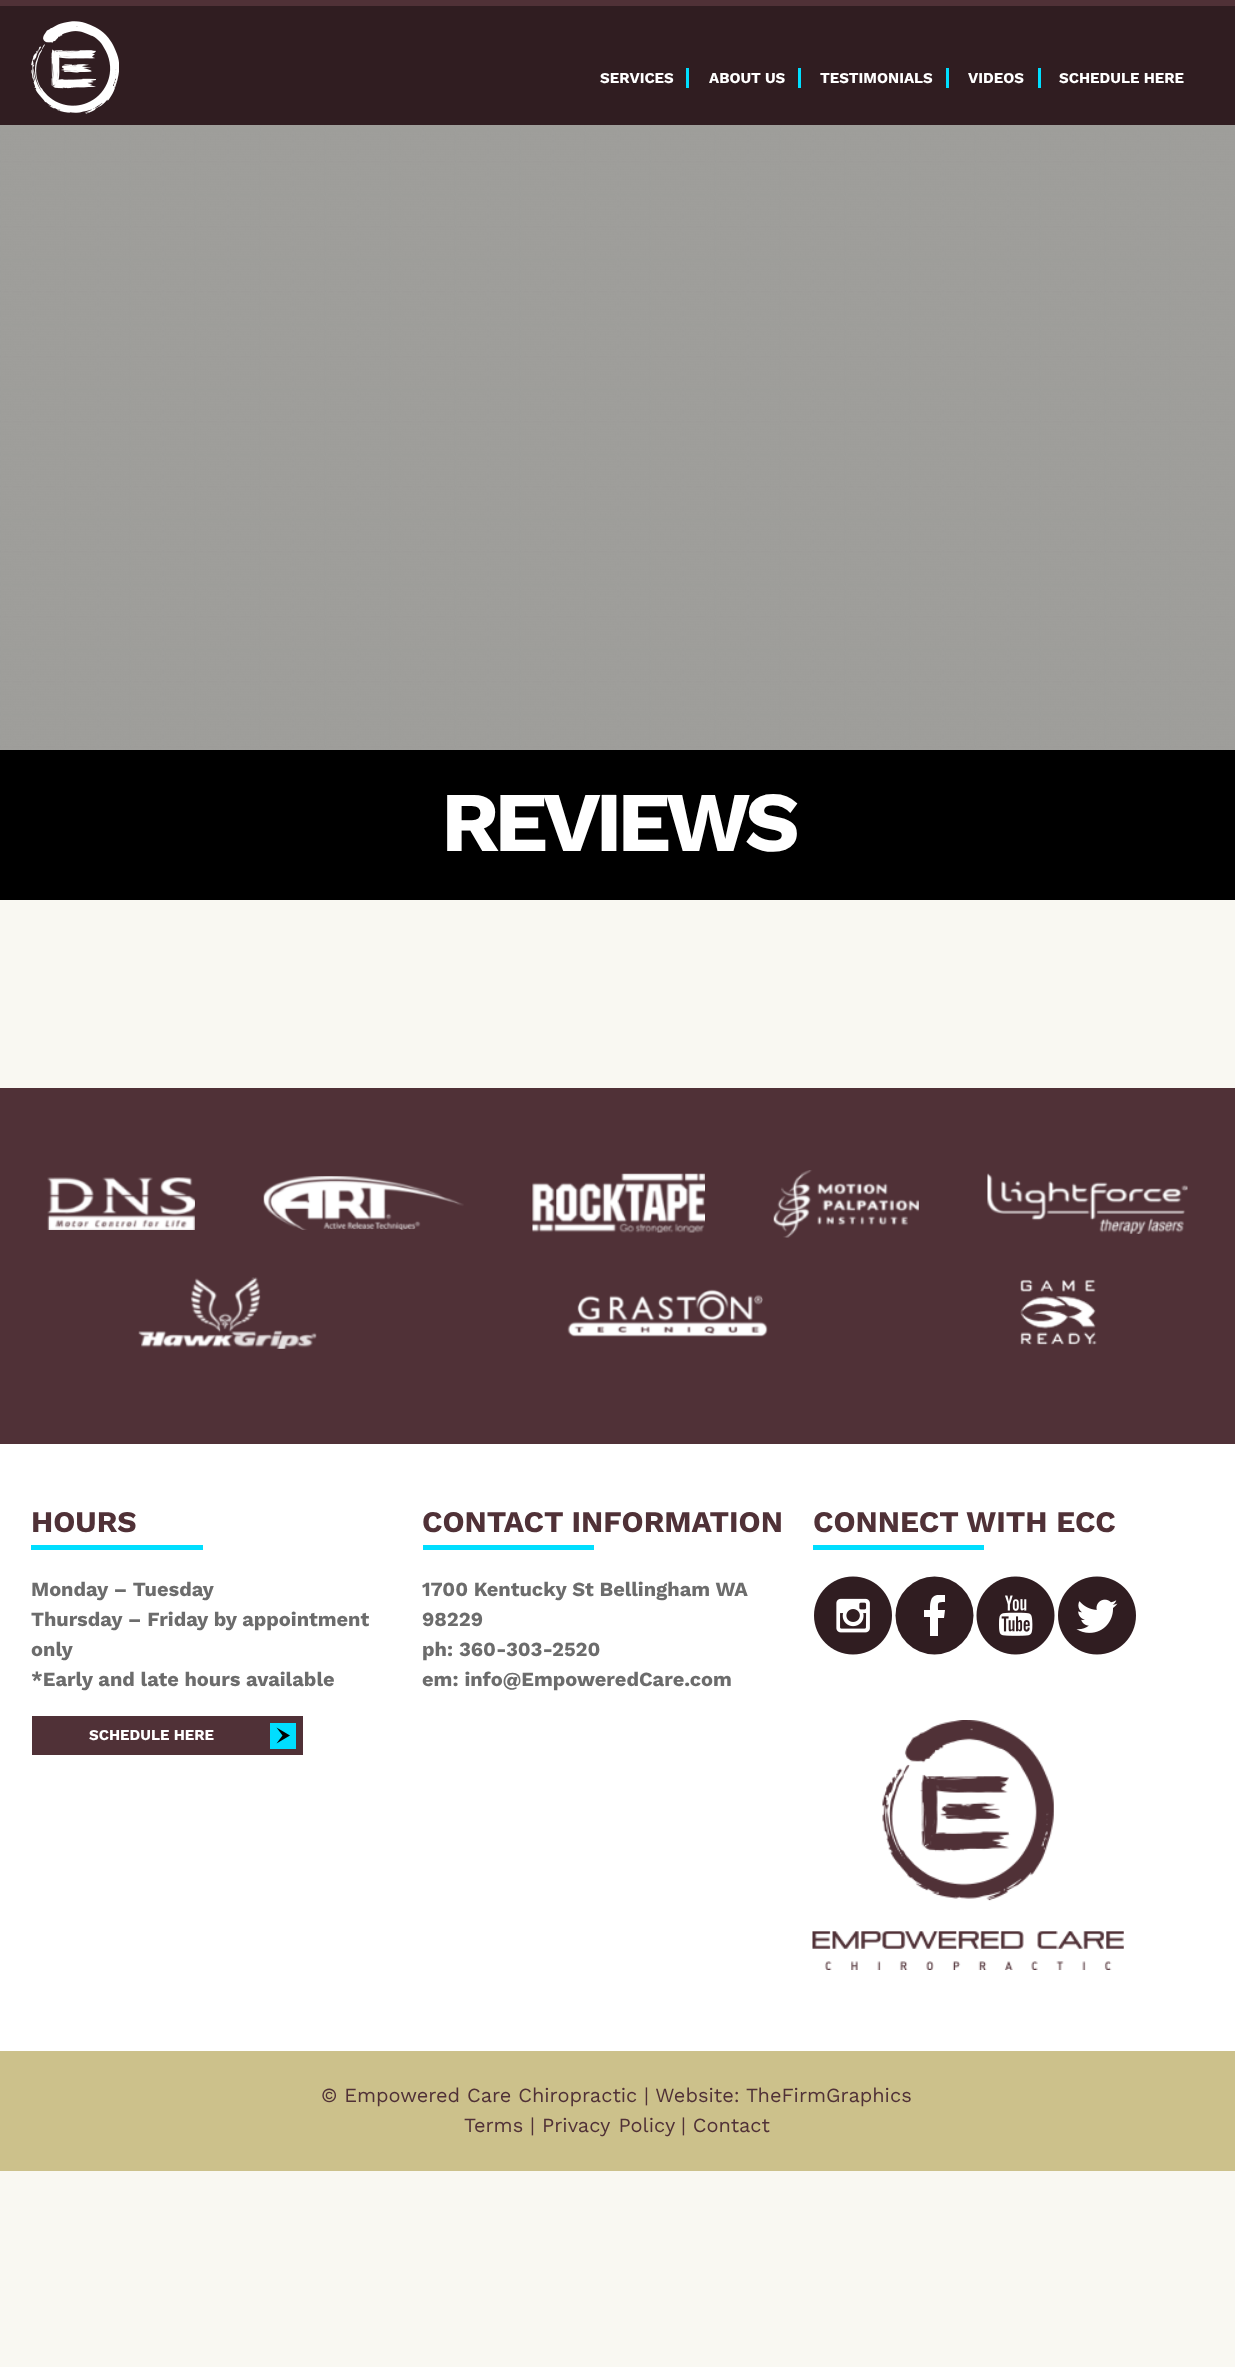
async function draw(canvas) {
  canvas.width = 1235
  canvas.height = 2367
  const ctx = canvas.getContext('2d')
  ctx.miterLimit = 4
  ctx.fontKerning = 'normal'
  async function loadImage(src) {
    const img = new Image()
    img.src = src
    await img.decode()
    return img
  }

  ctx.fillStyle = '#f9f8f2'
  ctx.fillRect(0, 0, 1235, 2367)
  ctx.fillStyle = '#301d21'
  ctx.fillRect(0, 6, 1235, 119)
  ctx.fillStyle = '#503137'
  ctx.fillRect(0, 0, 1235, 6)
  ctx.drawImage(await loadImage('image0.png'), 31, 21, 88, 93)
  ctx.fillStyle = '#00deff'
  ctx.fillRect(686, 68, 3, 20)
  ctx.font = 'bold 15px Work Sans'
  ctx.fillStyle = '#fff'
  ctx.fillText('SERVICES', 600, 83)
  ctx.fillStyle = '#00deff'
  ctx.fillRect(798, 68, 3, 20)
  ctx.fillStyle = '#fff'
  ctx.fillText('ABOUT US', 709, 83)
  ctx.fillStyle = '#00deff'
  ctx.fillRect(946, 68, 3, 20)
  ctx.fillStyle = '#fff'
  ctx.fillText('TESTIMONIALS', 820, 83)
  ctx.fillStyle = '#00deff'
  ctx.fillRect(1038, 68, 3, 20)
  ctx.fillStyle = '#fff'
  ctx.fillText('VIDEOS', 968, 83)
  ctx.fillText('SCHEDULE HERE', 1059, 83)
  ctx.drawImage(await loadImage('image1.png'), 0, 125, 1235, 625)
  ctx.fillStyle = '#000'
  ctx.fillRect(0, 750, 1235, 150)
  ctx.letterSpacing = '-5.25px'
  ctx.font = 'bold 85px Work Sans'
  ctx.fillStyle = '#fff'
  ctx.fillText('REVIEWS', 441, 851)
  ctx.fillStyle = '#503137'
  ctx.fillRect(0, 1088, 1235, 356)
  ctx.drawImage(await loadImage('image2.png'), 47, 1177, 148, 53)
  ctx.drawImage(await loadImage('image3.png'), 263, 1176, 201, 54)
  ctx.drawImage(await loadImage('image4.png'), 532, 1173, 173, 60)
  ctx.drawImage(await loadImage('image5.png'), 773, 1170, 146, 68)
  ctx.drawImage(await loadImage('image6.png'), 987, 1173, 201, 61)
  ctx.drawImage(await loadImage('image7.png'), 138, 1277, 179, 72)
  ctx.drawImage(await loadImage('image8.png'), 567, 1289, 201, 48)
  ctx.drawImage(await loadImage('image9.png'), 1020, 1279, 77, 66)
  ctx.fillStyle = '#fff'
  ctx.fillRect(0, 1444, 1235, 607)
  ctx.letterSpacing = '0px'
  ctx.font = 'bold 30px Work Sans'
  ctx.fillStyle = '#503137'
  ctx.fillText('HOURS', 31, 1532)
  ctx.fillStyle = '#00deff'
  ctx.fillRect(31, 1545, 172, 5)
  ctx.font = 'bold 20px Work Sans'
  ctx.fillStyle = '#6c6c6c'
  ctx.fillText('Monday – Tuesday', 31, 1596)
  ctx.fillText('Thursday – Friday by appointment', 31, 1626)
  ctx.fillText('only', 31, 1656)
  ctx.fillText('*Early and late hours available', 31, 1686)
  ctx.fillStyle = '#503137'
  ctx.fillRect(32, 1716, 271, 39)
  ctx.font = 'bold 15px Work Sans'
  ctx.fillStyle = '#fff'
  ctx.fillText('SCHEDULE HERE', 89, 1740)
  ctx.fillStyle = '#00deff'
  ctx.fillRect(270, 1723, 26, 26)
  ctx.fillStyle = '#000'
  ctx.beginPath()
  ctx.moveTo(282.5, 1735.5)
  ctx.lineTo(276.5, 1727.5)
  ctx.lineTo(290, 1735.5)
  ctx.lineTo(276.5, 1743.5)
  ctx.closePath()
  ctx.fill()
  ctx.font = 'bold 30px Work Sans'
  ctx.fillStyle = '#503137'
  ctx.fillText('CONTACT INFORMATION', 422, 1532)
  ctx.fillStyle = '#00deff'
  ctx.fillRect(423, 1545, 171, 5)
  ctx.font = 'bold 20px Work Sans'
  ctx.fillStyle = '#6c6c6c'
  ctx.fillText('1700 Kentucky St Bellingham WA', 422, 1596)
  ctx.fillText('98229', 422, 1626)
  ctx.fillText('ph: 360-303-2520', 422, 1656)
  ctx.fillText('em: info@EmpoweredCare.com', 422, 1686)
  ctx.font = 'bold 30px Work Sans'
  ctx.fillStyle = '#503137'
  ctx.fillText('CONNECT WITH ECC', 813, 1532)
  ctx.fillStyle = '#00deff'
  ctx.fillRect(813, 1545, 171, 5)
  ctx.drawImage(await loadImage('image10.png'), 814, 1576, 78, 79)
  ctx.fillStyle = '#301d21'
  ctx.beginPath()
  ctx.arc(934.5, 1615.5, 39, 0, 2 * Math.PI)
  ctx.fill()
  ctx.fillStyle = '#fff'
  ctx.beginPath()
  ctx.moveTo(944, 1618)
  ctx.lineTo(945, 1610)
  ctx.lineTo(938, 1610)
  ctx.bezierCurveTo(938, 1602, 937, 1602, 945, 1602)
  ctx.lineTo(945, 1595)
  ctx.lineTo(937, 1595)
  ctx.bezierCurveTo(930, 1596, 930, 1604, 930, 1610)
  ctx.lineTo(924, 1610)
  ctx.lineTo(924, 1617)
  ctx.lineTo(930, 1617)
  ctx.lineTo(930, 1636)
  ctx.lineTo(938, 1636)
  ctx.lineTo(938, 1618)
  ctx.closePath()
  ctx.fill()
  ctx.drawImage(await loadImage('image11.png'), 976, 1576, 79, 79)
  ctx.drawImage(await loadImage('image12.png'), 1058, 1576, 78, 79)
  ctx.drawImage(await loadImage('image13.png'), 812, 1720, 312, 250)
  ctx.fillStyle = '#ccc18b'
  ctx.fillRect(0, 2051, 1235, 120)
  ctx.font = '20px Work Sans'
  ctx.fillStyle = '#503137'
  ctx.fillText('© Empowered Care Chiropractic | Website: TheFirmGraphics', 321, 2102)
  ctx.fillText('Terms |', 464, 2132)
  ctx.wordSpacing = '2px'
  ctx.fillText('Privacy Policy', 542, 2132)
  ctx.wordSpacing = '0px'
  ctx.fillText('| Contact', 681, 2132)
}

draw(document.querySelector('canvas'))
